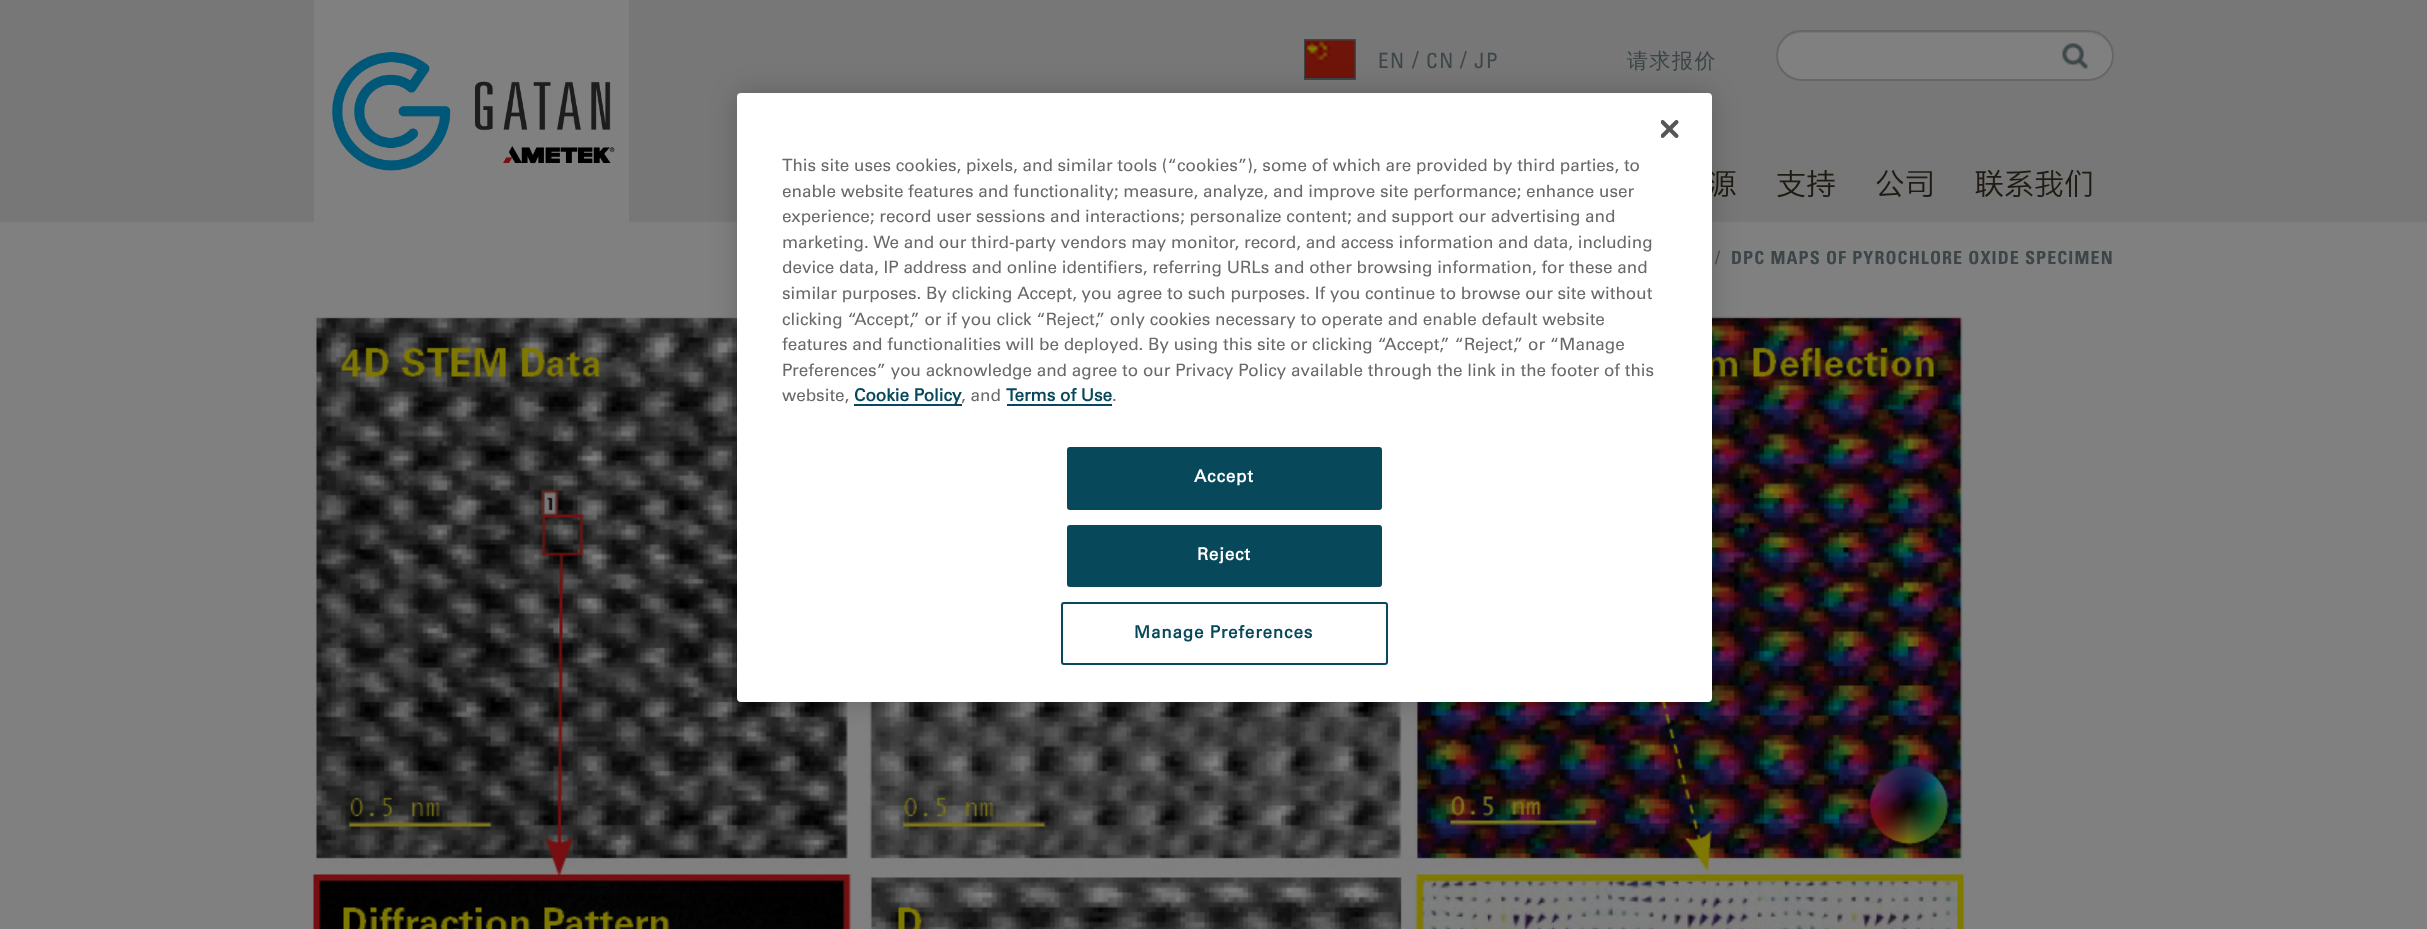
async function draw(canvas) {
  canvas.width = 2427
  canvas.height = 929
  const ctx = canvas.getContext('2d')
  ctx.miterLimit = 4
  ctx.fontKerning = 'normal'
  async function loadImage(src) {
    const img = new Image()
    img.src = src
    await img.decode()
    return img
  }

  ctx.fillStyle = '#808080'
  ctx.fillRect(0, 0, 2427, 929)
  ctx.fillStyle = '#777'
  ctx.fillRect(0, 0, 2427, 222)
  ctx.fillStyle = '#808080'
  ctx.fillRect(314, 0, 315, 222)
  ctx.drawImage(await loadImage('image0.png'), 332, 52, 283, 119)
  ctx.letterSpacing = '1.5px'
  ctx.font = '21px "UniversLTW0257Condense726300"'
  ctx.fillStyle = '#3c4649'
  ctx.fillText('EN', 1378, 68)
  ctx.letterSpacing = '0px'
  ctx.font = '24px "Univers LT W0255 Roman"'
  ctx.fillText('/', 1412, 68)
  ctx.strokeStyle = '#3c4649'
  ctx.lineWidth = 2
  ctx.strokeRect(1305, 40, 50, 39)
  ctx.drawImage(await loadImage('image1.png'), 1305, 40, 50, 38)
  ctx.letterSpacing = '1.5px'
  ctx.font = '21px "UniversLTW0257Condense726300"'
  ctx.fillText('CN', 1426, 68)
  ctx.letterSpacing = '0px'
  ctx.font = '24px "Univers LT W0255 Roman"'
  ctx.fillText('/', 1460, 68)
  ctx.letterSpacing = '1.5px'
  ctx.font = '21px "UniversLTW0257Condense726300"'
  ctx.fillText('JP', 1474, 68)
  ctx.font = '500 21px WenQuanYi Zen Hei'
  ctx.fillText('请求报价', 1627, 68)
  ctx.fillStyle = '#808080'
  ctx.beginPath()
  ctx.roundRect(1776, 30, 338, 51, 25.5)
  ctx.fill()
  ctx.drawImage(await loadImage('image2.png'), 2062, 43, 26, 26)
  ctx.fillStyle = '#767676'
  ctx.beginPath()
  ctx.moveTo(1802, 33)
  ctx.lineTo(2088, 33)
  ctx.bezierCurveTo(2101, 33, 2112, 44, 2112, 57)
  ctx.bezierCurveTo(2112, 43, 2101, 32, 2088, 32)
  ctx.lineTo(1802, 32)
  ctx.bezierCurveTo(1789, 32, 1778, 43, 1778, 56)
  ctx.bezierCurveTo(1778, 44, 1788, 33, 1802, 33)
  ctx.closePath()
  ctx.fill()
  ctx.beginPath()
  ctx.roundRect(1777, 31, 336, 49, 24.5)
  ctx.strokeStyle = '#666'
  ctx.stroke()
  ctx.letterSpacing = '0px'
  ctx.font = '30px "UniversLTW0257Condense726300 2"'
  ctx.fillStyle = '#1f1a12'
  ctx.fillText('源', 1707, 194)
  ctx.fillText('支持', 1776, 194)
  ctx.fillText('公司', 1875, 194)
  ctx.fillText('联系我们', 1974, 194)
  ctx.drawImage(await loadImage('image4.png'), 313, 315, 1651, 614)
  ctx.fillStyle = '#00000033'
  ctx.filter = 'blur(13.5px)'
  ctx.beginPath()
  ctx.roundRect(737, 93, 975, 609, 4)
  ctx.fill()
  ctx.filter = 'none'
  ctx.fillStyle = '#fff'
  ctx.beginPath()
  ctx.roundRect(737, 93, 975, 609, 4)
  ctx.fill()
  ctx.drawImage(await loadImage('image3.png'), 1661, 120, 18, 18)
  ctx.font = '17.07px "Univers LT W0255 Roman"'
  ctx.fillStyle = '#696969'
  ctx.fillText('This site uses cookies, pixels, and similar tools (“cookies”), some of which are provided by third parties, to', 782, 171)
  ctx.fillText('enable website features and functionality; measure, analyze, and improve site performance; enhance user', 782, 197)
  ctx.fillText('experience; record user sessions and interactions; personalize content; and support our advertising and', 782, 222)
  ctx.fillText('marketing. We and our third-party vendors may monitor, record, and access information and data, including', 782, 248)
  ctx.fillText('device data, IP address and online identifiers, referring URLs and other browsing information, for these and', 782, 273)
  ctx.fillText('similar purposes. By clicking Accept, you agree to such purposes. If you continue to browse our site without', 782, 299)
  ctx.fillText('clicking “Accept,” or if you click “Reject,” only cookies necessary to operate and enable default website', 782, 325)
  ctx.fillText('features and functionalities will be deployed. By using this site or clicking “Accept,” “Reject,” or “Manage', 782, 350)
  ctx.fillText('Preferences” you acknowledge and agree to our Privacy Policy available through the link in the footer of this', 782, 376)
  ctx.fillText('website,', 782, 401)
  ctx.fillStyle = '#07485b'
  ctx.fillRect(854, 404, 108, 2)
  ctx.font = 'bold 17.07px "Univers LT W0255 Roman"'
  ctx.fillText('Cookie Policy', 854, 401)
  ctx.font = '17.07px "Univers LT W0255 Roman"'
  ctx.fillStyle = '#696969'
  ctx.fillText(', and', 961, 401)
  ctx.font = 'bold 17.07px "Univers LT W0255 Roman"'
  ctx.fillStyle = '#07485b'
  ctx.fillText('Terms of Use', 1006, 401)
  ctx.fillRect(1007, 404, 105, 2)
  ctx.font = '17.07px "Univers LT W0255 Roman"'
  ctx.fillStyle = '#696969'
  ctx.fillText('.', 1112, 401)
  ctx.fillStyle = '#07485b'
  ctx.beginPath()
  ctx.roundRect(1068, 448, 313, 61, 2)
  ctx.fill()
  ctx.strokeStyle = '#07485b'
  ctx.stroke()
  ctx.letterSpacing = '0.8px'
  ctx.font = 'bold 17.07px "Univers LT W0255 Roman"'
  ctx.fillStyle = '#fff'
  ctx.fillText('Accept', 1194, 482)
  ctx.fillStyle = '#07485b'
  ctx.beginPath()
  ctx.roundRect(1068, 526, 313, 60, 2)
  ctx.fill()
  ctx.stroke()
  ctx.fillStyle = '#fff'
  ctx.fillText('Reject', 1197, 560)
  ctx.beginPath()
  ctx.roundRect(1062, 603, 325, 61, 2)
  ctx.stroke()
  ctx.fillStyle = '#07485b'
  ctx.fillText('Manage Preferences', 1134, 638)
  ctx.letterSpacing = '1.1px'
  ctx.font = '18px "UniversLTW0257Condense726300"'
  ctx.fillStyle = '#3c4649'
  ctx.fillText('/', 1715, 264)
  ctx.font = 'bold 18px "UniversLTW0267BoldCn"'
  ctx.fillText('DPC MAPS OF PYROCHLORE OXIDE SPECIMEN', 1731, 264)
}

draw(document.querySelector('canvas'))
